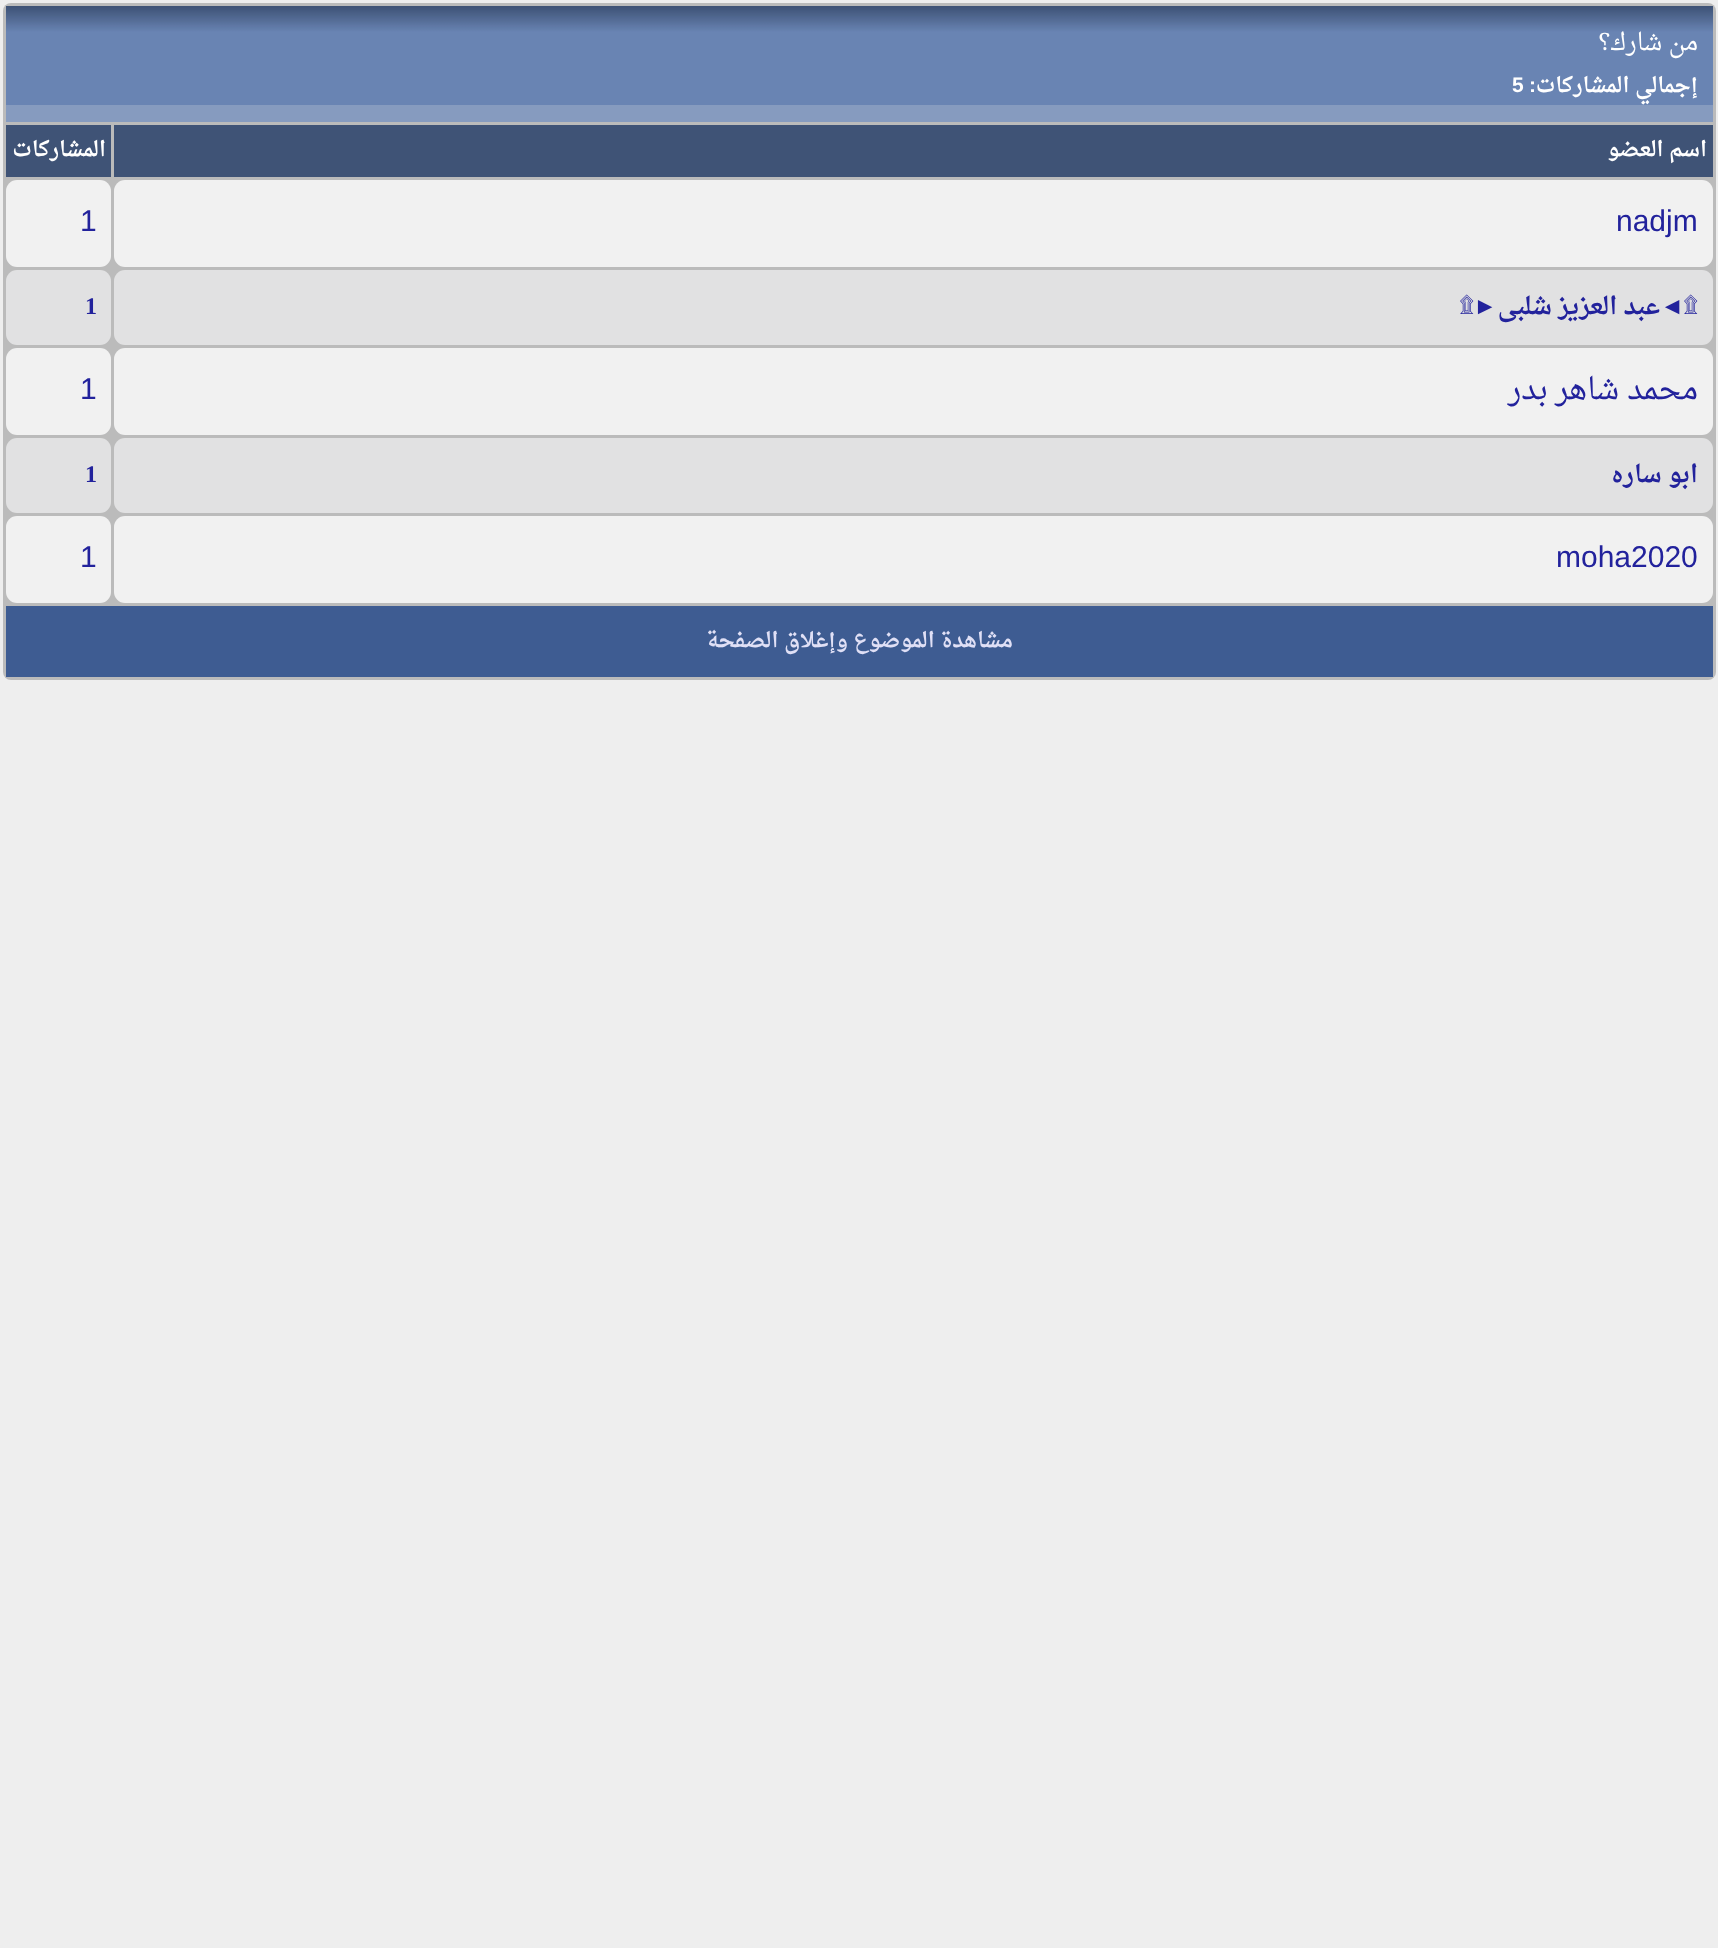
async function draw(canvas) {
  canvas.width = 1718
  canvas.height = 1948
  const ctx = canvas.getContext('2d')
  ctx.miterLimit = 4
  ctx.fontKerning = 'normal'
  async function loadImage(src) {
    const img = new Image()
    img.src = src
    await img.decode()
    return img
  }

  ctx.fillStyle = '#eee'
  ctx.fillRect(0, 0, 1718, 1948)
  ctx.fillStyle = '#bbb'
  ctx.beginPath()
  ctx.roundRect(3, 3, 1713, 677, 8)
  ctx.fill()
  ctx.fillStyle = '#869bbf'
  ctx.fillRect(6, 105, 1707, 17)
  ctx.drawImage(await loadImage('image0.png'), 6, 6, 1707, 99)
  ctx.direction = 'rtl'
  ctx.font = '24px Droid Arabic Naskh'
  ctx.fillStyle = '#fff'
  ctx.fillText('من شارك؟', 1698, 50)
  ctx.font = 'bold 21px Droid Arabic Naskh'
  ctx.fillText('إجمالي المشاركات', 1698, 92)
  ctx.font = 'bold 21px Liberation Sans'
  ctx.fillText(':', 1536, 92)
  ctx.direction = 'ltr'
  ctx.fillText('5', 1512, 92)
  ctx.fillStyle = '#3f5376'
  ctx.fillRect(114, 125, 1599, 52)
  ctx.direction = 'rtl'
  ctx.font = 'bold 21px Droid Arabic Naskh'
  ctx.fillStyle = '#fff'
  ctx.fillText('اسم العضو', 1707, 156)
  ctx.fillStyle = '#3f5376'
  ctx.fillRect(6, 125, 105, 52)
  ctx.fillStyle = '#fff'
  ctx.fillText('المشاركات', 106, 156)
  ctx.fillStyle = '#f1f1f1'
  ctx.beginPath()
  ctx.roundRect(114, 180, 1599, 87, 11)
  ctx.fill()
  ctx.direction = 'ltr'
  ctx.font = '30px Liberation Sans'
  ctx.fillStyle = '#22229c'
  ctx.fillText('nadjm', 1616, 231)
  ctx.fillStyle = '#f1f1f1'
  ctx.beginPath()
  ctx.roundRect(6, 180, 105, 87, 11)
  ctx.fill()
  ctx.fillStyle = '#22229c'
  ctx.fillText('1', 80, 231)
  ctx.fillStyle = '#e1e1e2'
  ctx.beginPath()
  ctx.roundRect(114, 270, 1599, 75, 11)
  ctx.fill()
  ctx.direction = 'rtl'
  ctx.font = 'bold 24px Droid Arabic Naskh'
  ctx.fillStyle = '#22229c'
  ctx.fillText('۩', 1698, 314)
  ctx.font = 'bold 24px Liberation Serif'
  ctx.fillText('◄', 1684, 314)
  ctx.font = 'bold 24px Droid Arabic Naskh'
  ctx.fillText('عبد العزيز شلبى', 1660, 314)
  ctx.font = 'bold 24px Liberation Serif'
  ctx.fillText('►', 1497, 314)
  ctx.font = 'bold 24px Droid Arabic Naskh'
  ctx.fillText('۩', 1474, 314)
  ctx.fillStyle = '#e1e1e2'
  ctx.beginPath()
  ctx.roundRect(6, 270, 105, 75, 11)
  ctx.fill()
  ctx.direction = 'ltr'
  ctx.font = 'bold 24px Liberation Serif'
  ctx.fillStyle = '#22229c'
  ctx.fillText('1', 85, 314)
  ctx.fillStyle = '#f1f1f1'
  ctx.beginPath()
  ctx.roundRect(114, 348, 1599, 87, 11)
  ctx.fill()
  ctx.direction = 'rtl'
  ctx.font = '30px Droid Arabic Naskh'
  ctx.fillStyle = '#22229c'
  ctx.fillText('محمد شاهر بدر', 1698, 399)
  ctx.fillStyle = '#f1f1f1'
  ctx.beginPath()
  ctx.roundRect(6, 348, 105, 87, 11)
  ctx.fill()
  ctx.direction = 'ltr'
  ctx.font = '30px Liberation Sans'
  ctx.fillStyle = '#22229c'
  ctx.fillText('1', 80, 399)
  ctx.fillStyle = '#e1e1e2'
  ctx.beginPath()
  ctx.roundRect(114, 438, 1599, 75, 11)
  ctx.fill()
  ctx.direction = 'rtl'
  ctx.font = 'bold 24px Droid Arabic Naskh'
  ctx.fillStyle = '#22229c'
  ctx.fillText('ابو ساره', 1698, 482)
  ctx.fillStyle = '#e1e1e2'
  ctx.beginPath()
  ctx.roundRect(6, 438, 105, 75, 11)
  ctx.fill()
  ctx.direction = 'ltr'
  ctx.font = 'bold 24px Liberation Serif'
  ctx.fillStyle = '#22229c'
  ctx.fillText('1', 85, 482)
  ctx.fillStyle = '#f1f1f1'
  ctx.beginPath()
  ctx.roundRect(114, 516, 1599, 87, 11)
  ctx.fill()
  ctx.font = '30px Liberation Sans'
  ctx.fillStyle = '#22229c'
  ctx.fillText('moha2020', 1556, 567)
  ctx.fillStyle = '#f1f1f1'
  ctx.beginPath()
  ctx.roundRect(6, 516, 105, 87, 11)
  ctx.fill()
  ctx.fillStyle = '#22229c'
  ctx.fillText('1', 80, 567)
  ctx.fillStyle = '#3e5c92'
  ctx.fillRect(6, 606, 1707, 71)
  ctx.direction = 'rtl'
  ctx.font = 'bold 21px Droid Arabic Naskh'
  ctx.fillStyle = '#e0e0f6'
  ctx.fillText('مشاهدة الموضوع وإغلاق الصفحة', 1013, 647)
}

draw(document.querySelector('canvas'))
